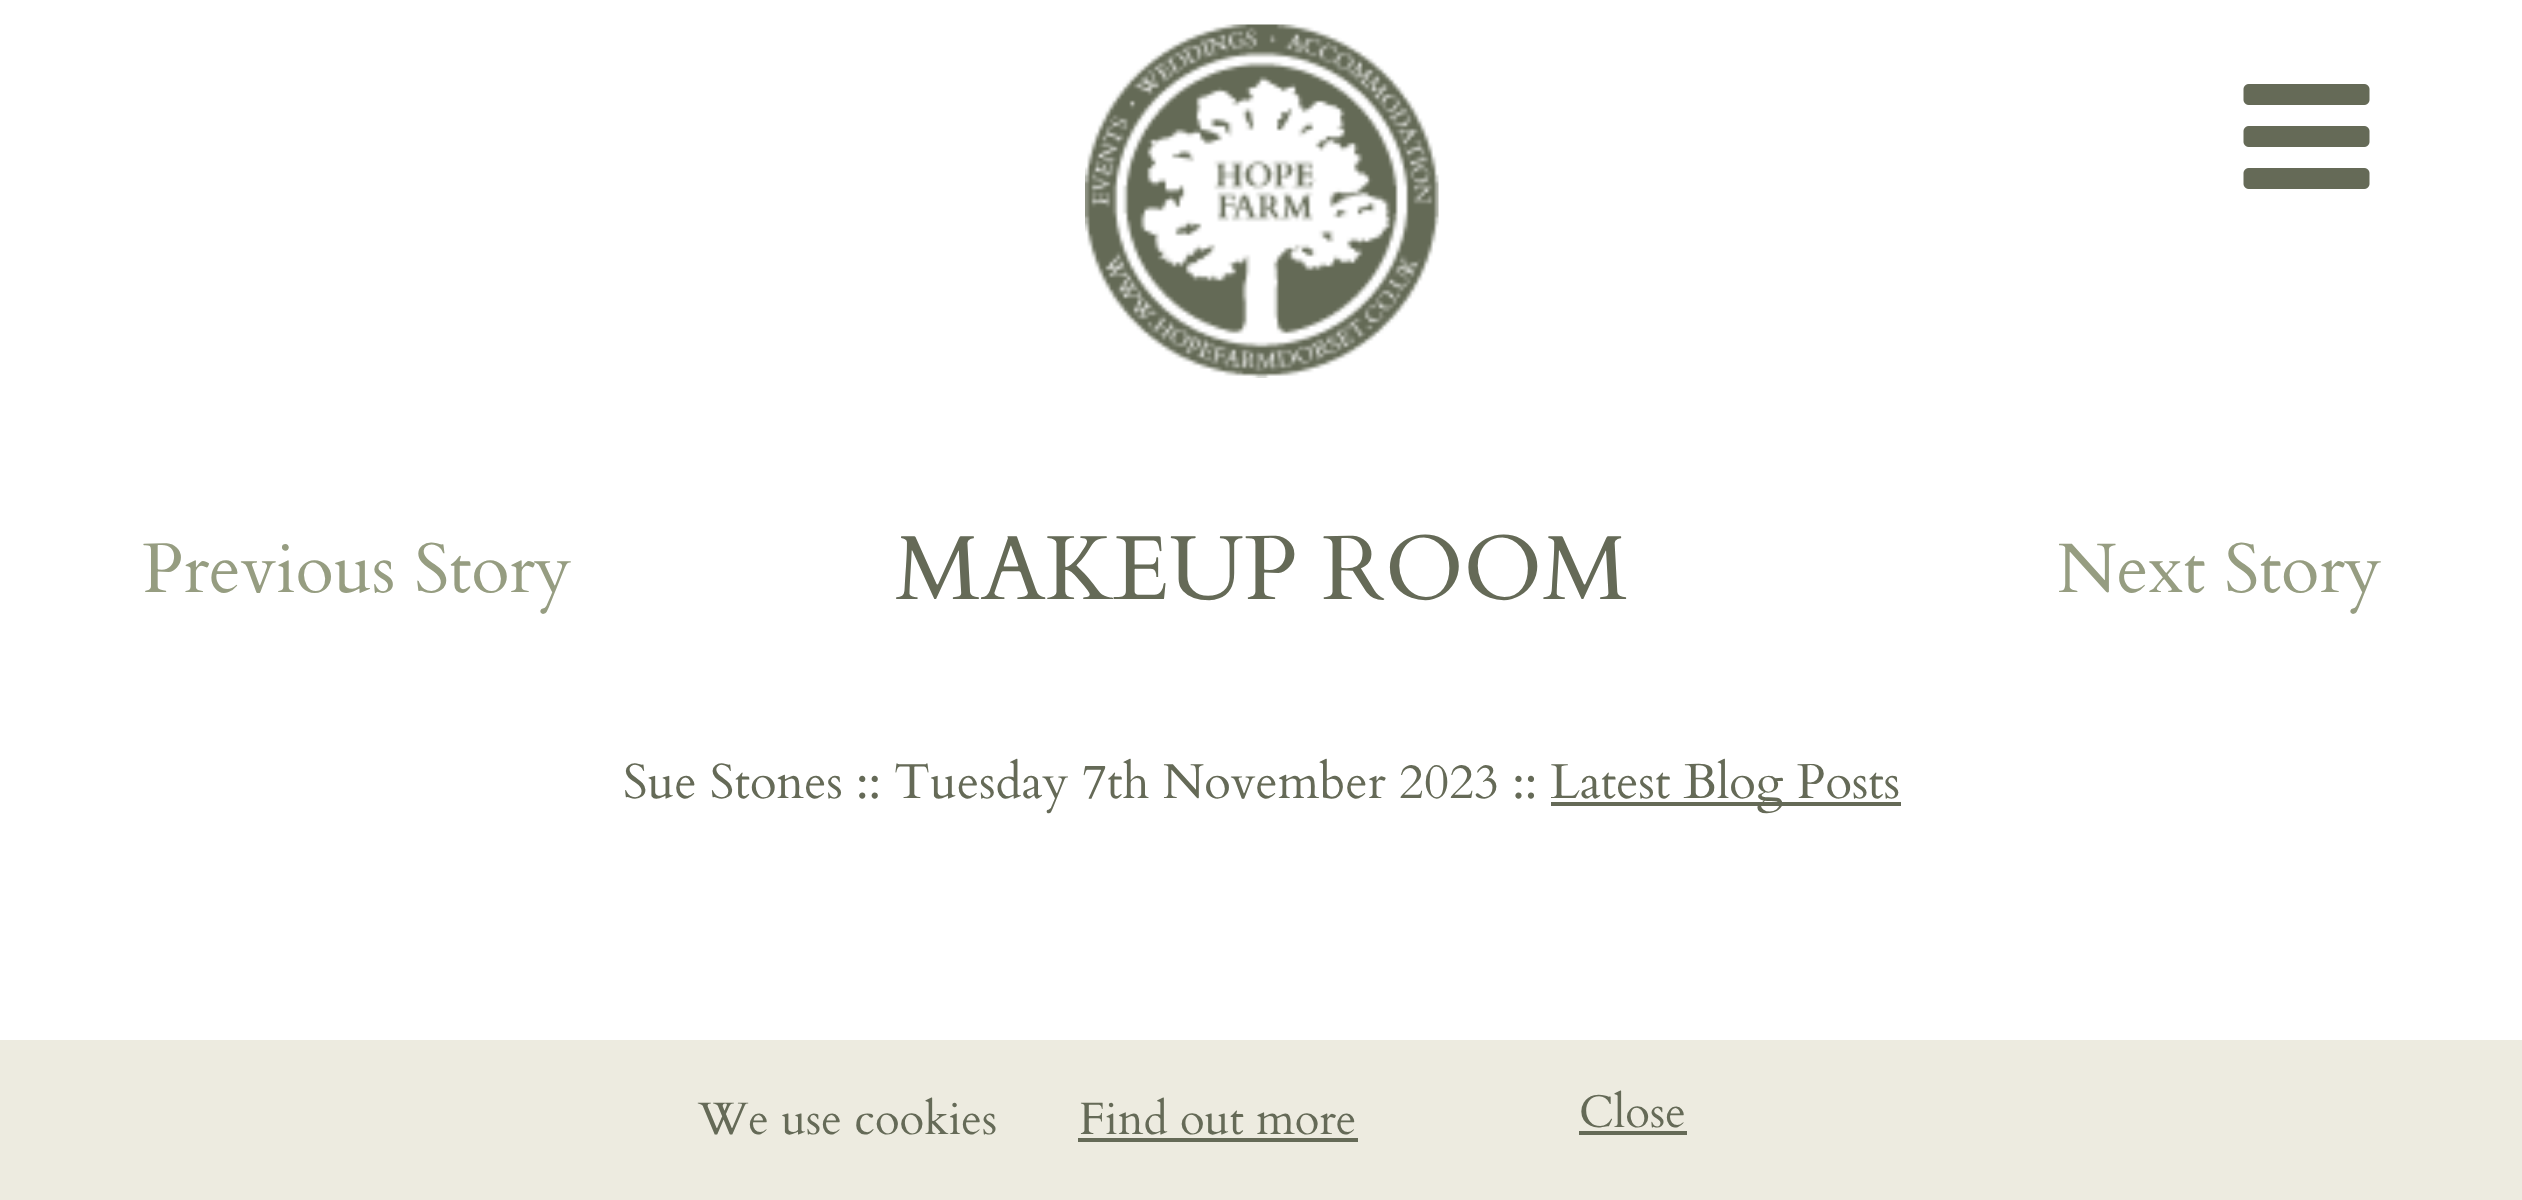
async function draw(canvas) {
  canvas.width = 2522
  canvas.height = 1200
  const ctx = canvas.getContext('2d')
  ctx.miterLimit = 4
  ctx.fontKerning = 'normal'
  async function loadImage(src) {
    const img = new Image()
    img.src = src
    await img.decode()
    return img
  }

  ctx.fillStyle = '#fff'
  ctx.fillRect(0, 0, 2522, 1200)
  ctx.drawImage(await loadImage('image0.png'), 1085, 24, 354, 354)
  ctx.drawImage(await loadImage('image1.png'), 2243, 84, 127, 105)
  ctx.font = '70px Cardo'
  ctx.fillStyle = '#969d81'
  ctx.fillText('Previous Story', 142, 592)
  ctx.font = '91px Cardo'
  ctx.fillStyle = '#656a57'
  ctx.fillText('MAKEUP ROOM', 895, 599)
  ctx.font = '70px Cardo'
  ctx.fillStyle = '#969d81'
  ctx.fillText('Next Story', 2057, 592)
  ctx.font = '49px Cardo'
  ctx.fillStyle = '#656a57'
  ctx.fillText('Sue Stones :: Tuesday 7th November 2023 ::', 623, 798)
  ctx.fillRect(1551, 802, 350, 4)
  ctx.fillText('Latest Blog Posts', 1550, 798)
  ctx.fillStyle = '#edebe0'
  ctx.fillRect(0, 1040, 2522, 160)
  ctx.font = '45.5px Cardo'
  ctx.fillStyle = '#656a57'
  ctx.fillText('We use cookies', 698, 1134)
  ctx.fillText('Find out more', 1079, 1134)
  ctx.fillRect(1078, 1138, 280, 4)
  ctx.fillText('Close', 1579, 1127)
  ctx.fillRect(1579, 1131, 108, 4)
}

draw(document.querySelector('canvas'))
